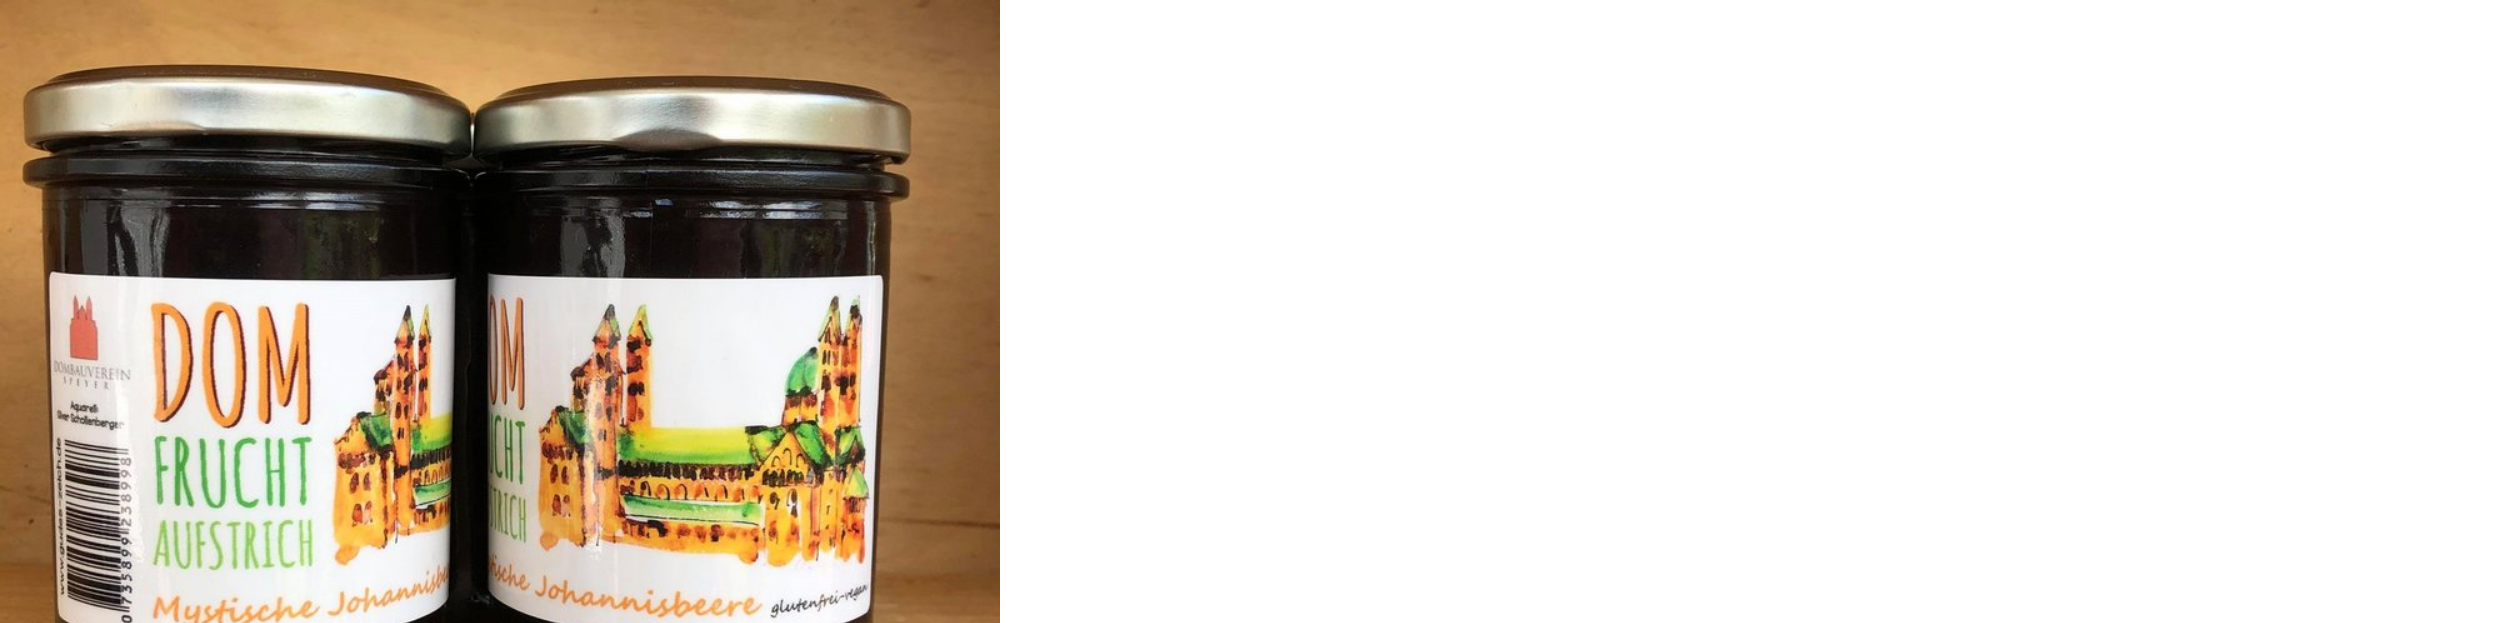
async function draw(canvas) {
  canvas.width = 2504
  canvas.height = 623
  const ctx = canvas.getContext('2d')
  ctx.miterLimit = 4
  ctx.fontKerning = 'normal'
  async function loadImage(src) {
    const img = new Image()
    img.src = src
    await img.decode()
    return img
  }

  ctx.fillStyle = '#fff'
  ctx.fillRect(0, 0, 2504, 623)
  ctx.drawImage(await loadImage('image0.png'), 0, 0, 1000, 623)
}

draw(document.querySelector('canvas'))
